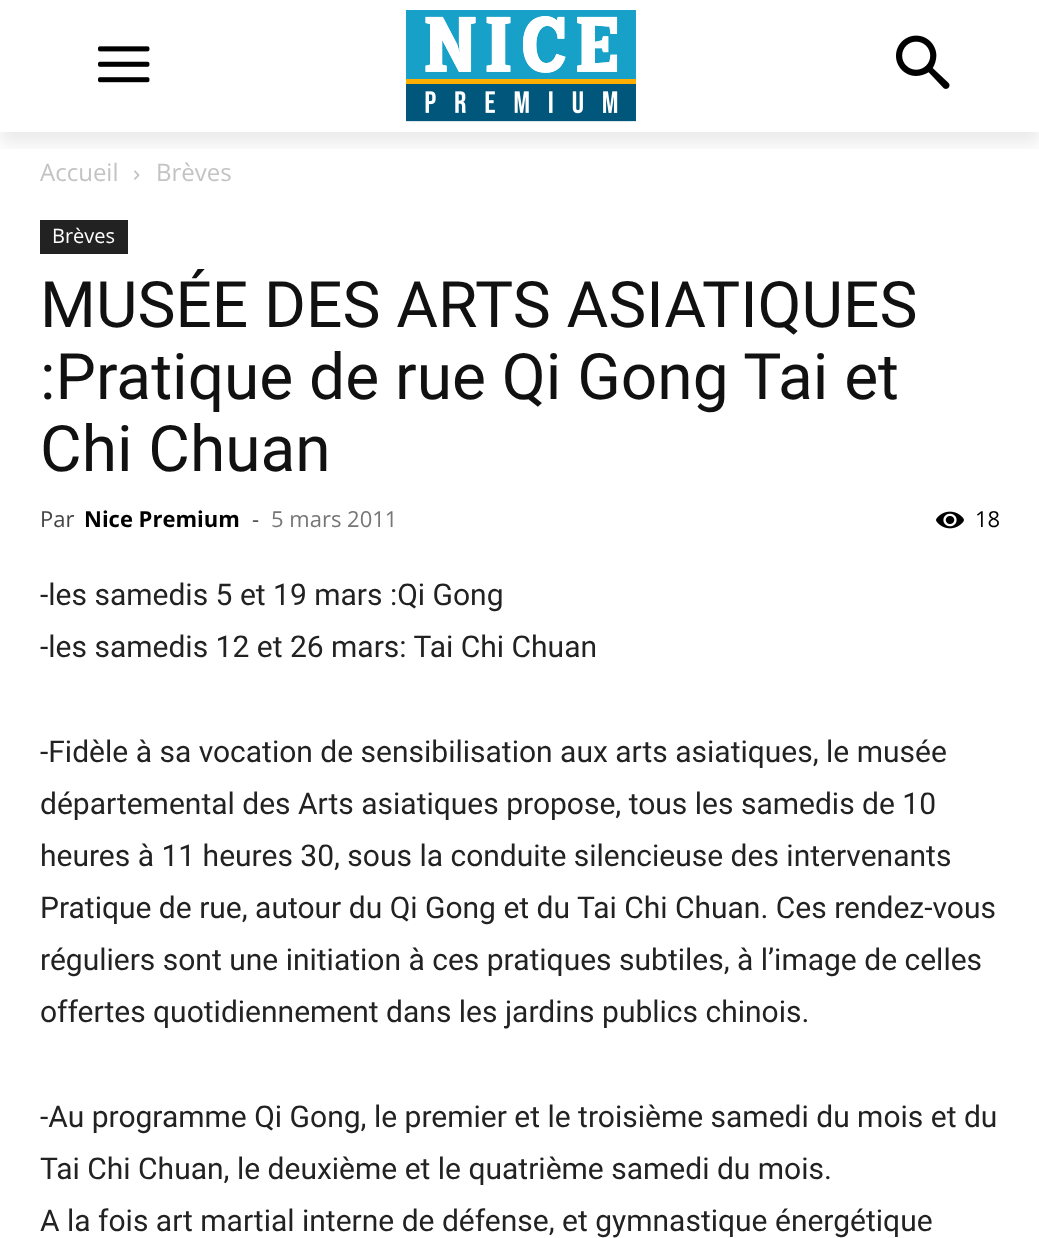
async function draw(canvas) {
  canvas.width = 1039
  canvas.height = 1238
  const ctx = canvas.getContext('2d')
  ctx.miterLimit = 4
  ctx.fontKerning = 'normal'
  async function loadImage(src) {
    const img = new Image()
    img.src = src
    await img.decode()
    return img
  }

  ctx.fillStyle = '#fff'
  ctx.fillRect(0, 0, 1039, 1238)
  ctx.drawImage(await loadImage('image0.png'), 98, 46, 52, 37)
  ctx.drawImage(await loadImage('image1.png'), 406, 10, 230, 112)
  ctx.drawImage(await loadImage('image2.png'), 896, 35, 54, 54)
  ctx.save()
  ctx.beginPath()
  ctx.rect(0, 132, 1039, 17)
  ctx.clip()
  ctx.fillStyle = '#00000014'
  ctx.filter = 'blur(8px)'
  ctx.beginPath()
  ctx.rect(0, 12, 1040, 132)
  ctx.fill()
  ctx.filter = 'none'
  ctx.restore()
  ctx.font = '24px Open Sans'
  ctx.fillStyle = '#c3c3c3'
  ctx.fillText('Accueil', 40, 181)
  ctx.drawImage(await loadImage('image3.png'), 134, 170, 6, 10)
  ctx.fillText('Brèves', 156, 181)
  ctx.fillStyle = '#222'
  ctx.fillRect(40, 220, 88, 34)
  ctx.font = '20px Open Sans'
  ctx.fillStyle = '#fff'
  ctx.fillText('Brèves', 52, 243)
  ctx.font = '64px Roboto'
  ctx.fillStyle = '#111'
  ctx.fillText('MUSÉE DES ARTS ASIATIQUES', 40, 327)
  ctx.fillText(':Pratique de rue Qi Gong Tai et', 40, 399)
  ctx.fillText('Chi Chuan', 40, 471)
  ctx.font = '22px Open Sans'
  ctx.fillStyle = '#444'
  ctx.fillText('Par', 40, 527)
  ctx.font = 'bold 22px Open Sans'
  ctx.fillStyle = '#000'
  ctx.fillText('Nice Premium', 84, 527)
  ctx.font = '22px Open Sans'
  ctx.fillStyle = '#444'
  ctx.fillText('-', 252, 527)
  ctx.fillStyle = '#767676'
  ctx.fillText('5 mars 2011', 271, 527)
  ctx.drawImage(await loadImage('image4.png'), 936, 511, 28, 18)
  ctx.fillStyle = '#000'
  ctx.fillText('18', 975, 527)
  ctx.font = '30px Roboto'
  ctx.fillStyle = '#222'
  ctx.fillText('-les samedis 5 et 19 mars :Qi Gong', 40, 605)
  ctx.fillText('-les samedis 12 et 26 mars: Tai Chi Chuan', 40, 657)
  ctx.fillText('-Fidèle à sa vocation de sensibilisation aux arts asiatiques, le musée', 40, 762)
  ctx.fillText('départemental des Arts asiatiques propose, tous les samedis de 10', 40, 814)
  ctx.fillText('heures à 11 heures 30, sous la conduite silencieuse des intervenants', 40, 866)
  ctx.fillText('Pratique de rue, autour du Qi Gong et du Tai Chi Chuan. Ces rendez-vous', 40, 918)
  ctx.fillText('réguliers sont une initiation à ces pratiques subtiles, à l’image de celles', 40, 970)
  ctx.fillText('offertes quotidiennement dans les jardins publics chinois.', 40, 1022)
  ctx.fillText('-Au programme Qi Gong, le premier et le troisième samedi du mois et du', 40, 1127)
  ctx.fillText('Tai Chi Chuan, le deuxième et le quatrième samedi du mois.', 40, 1179)
  ctx.fillText('A la fois art martial interne de défense, et gymnastique énergétique', 40, 1231)
}

draw(document.querySelector('canvas'))
